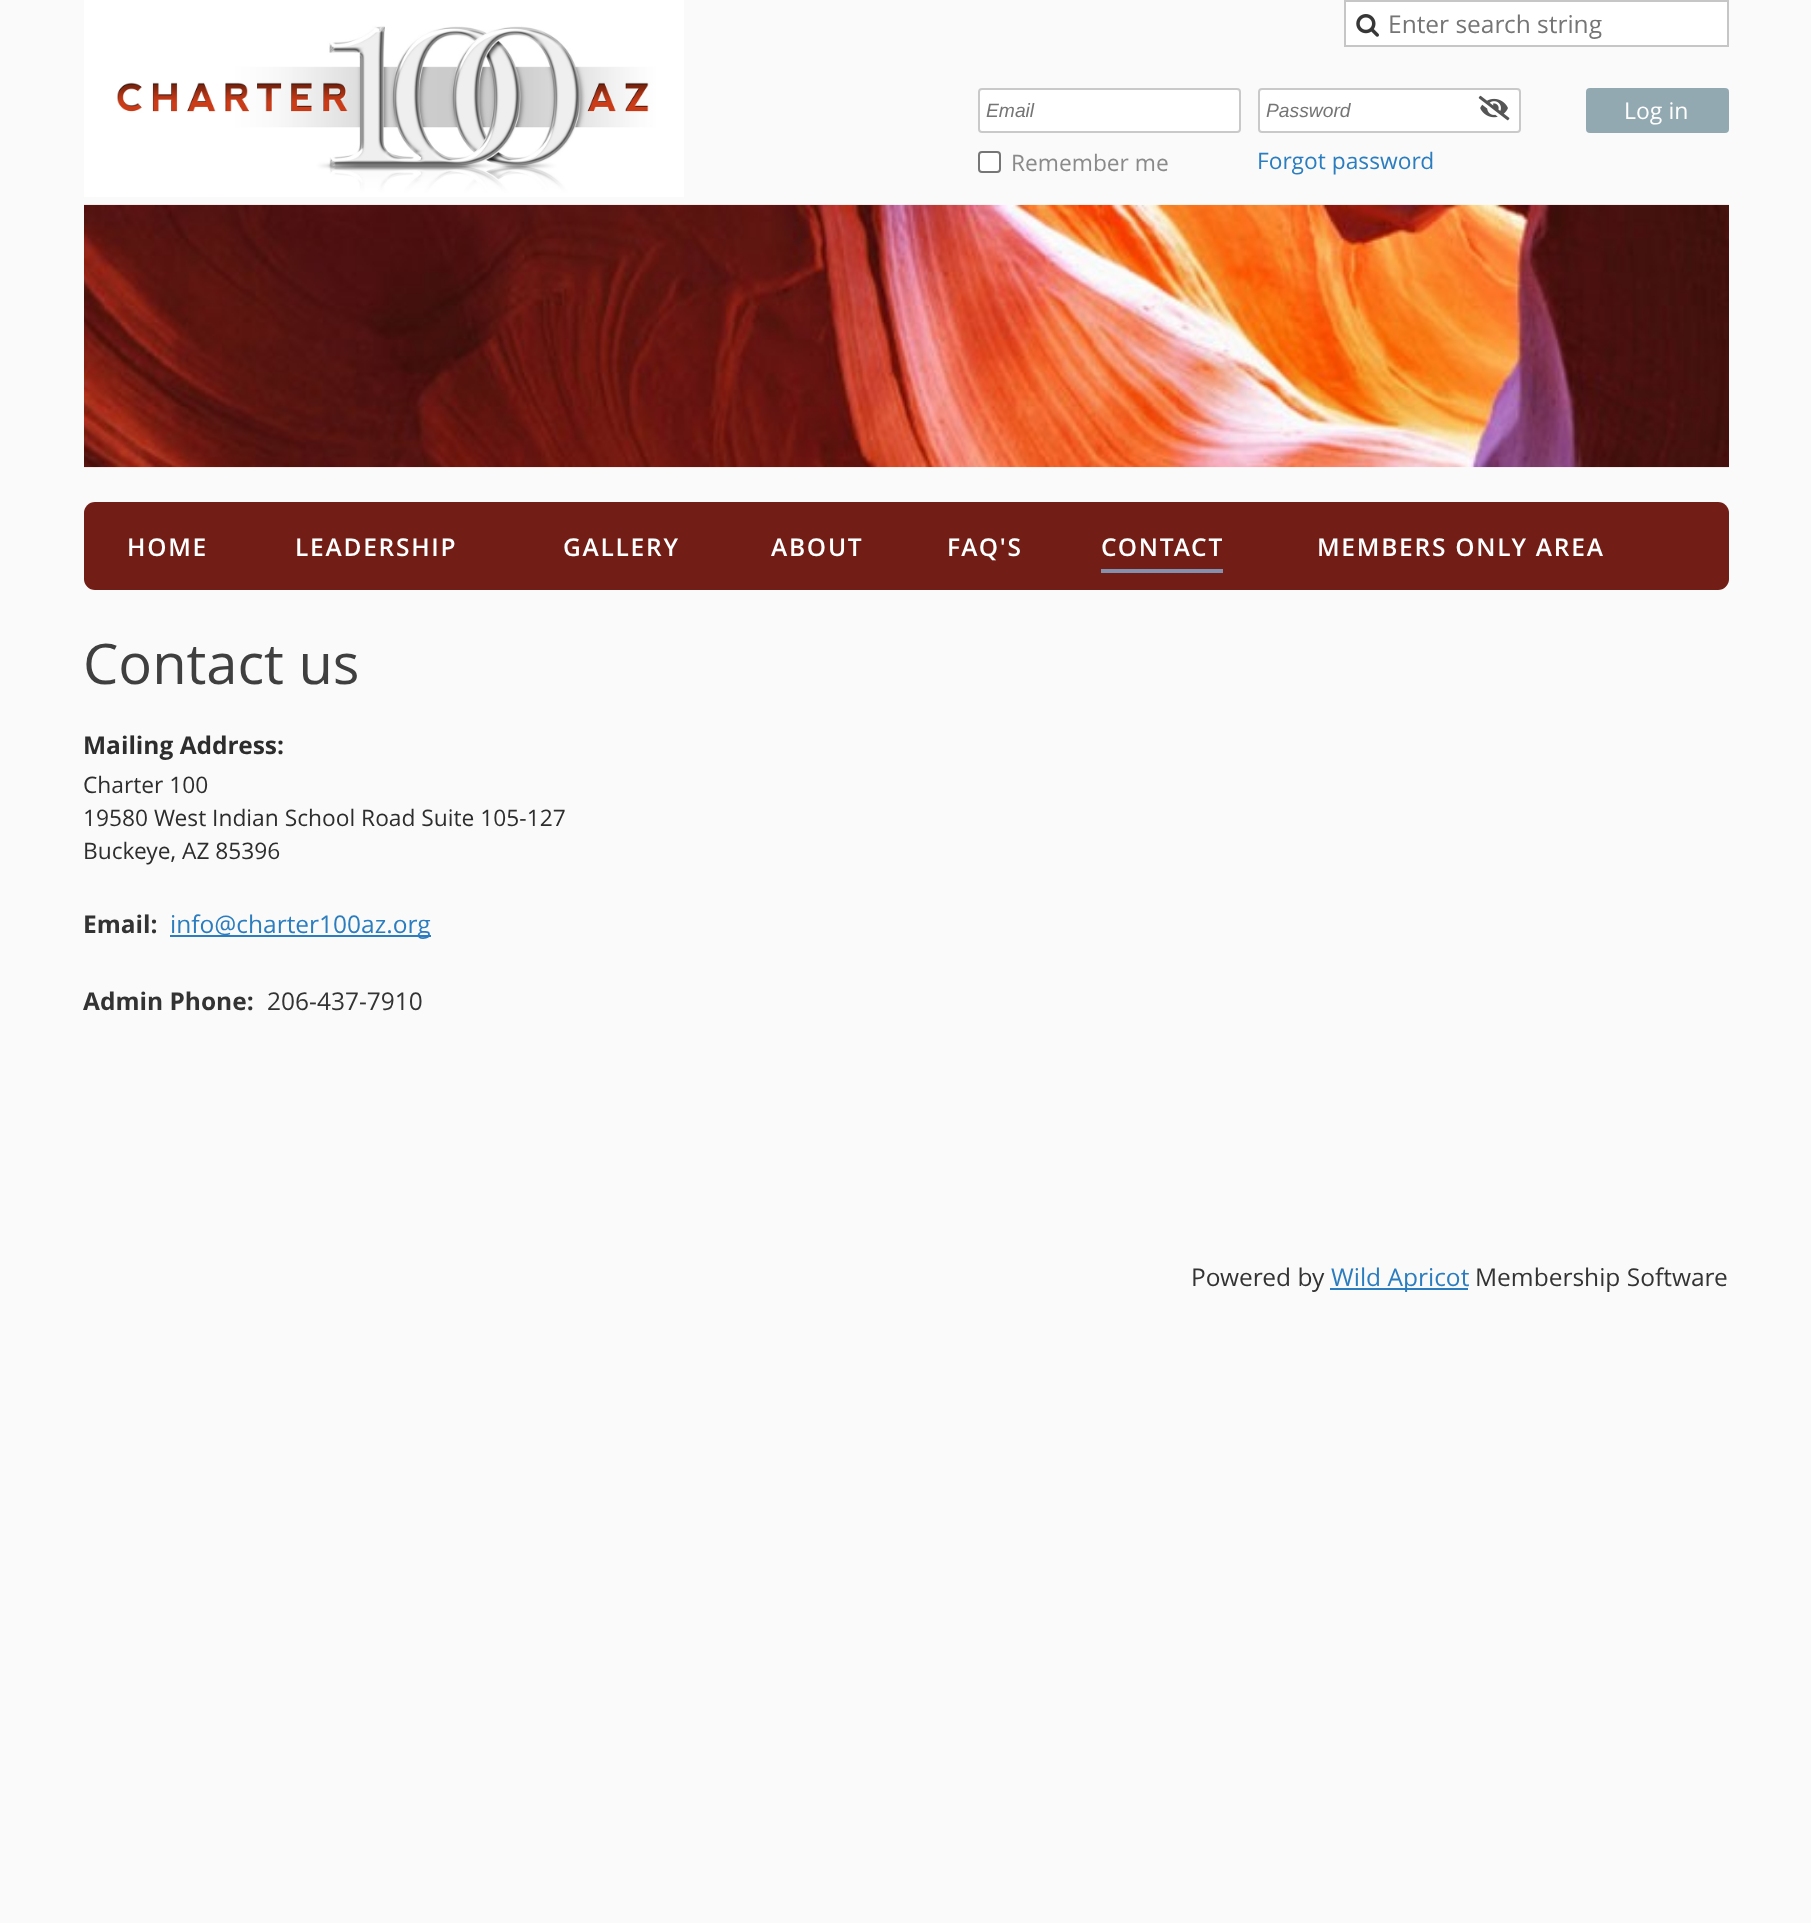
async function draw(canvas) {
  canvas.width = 1811
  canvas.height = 1923
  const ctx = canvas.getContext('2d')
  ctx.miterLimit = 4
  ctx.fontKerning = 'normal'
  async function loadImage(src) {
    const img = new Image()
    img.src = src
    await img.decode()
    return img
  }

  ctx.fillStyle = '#fafafa'
  ctx.fillRect(0, 0, 1811, 1923)
  ctx.drawImage(await loadImage('image0.png'), 84, 0, 600, 197)
  ctx.fillStyle = '#fff'
  ctx.beginPath()
  ctx.rect(1345, 1, 383, 45)
  ctx.fill()
  ctx.strokeStyle = '#c6c6c6'
  ctx.lineWidth = 2
  ctx.stroke()
  ctx.drawImage(await loadImage('image1.png'), 1356, 14, 23, 23)
  ctx.font = '24.5px Open Sans'
  ctx.fillStyle = '#757575'
  ctx.fillText('Enter search string', 1388, 33)
  ctx.fillStyle = '#fff'
  ctx.beginPath()
  ctx.roundRect(979, 89, 261, 43, 3)
  ctx.fill()
  ctx.strokeStyle = '#c9c9c9'
  ctx.stroke()
  ctx.font = 'italic 19.25px Liberation Sans'
  ctx.fillStyle = '#757575'
  ctx.fillText('Email', 986, 117)
  ctx.fillStyle = '#fff'
  ctx.beginPath()
  ctx.roundRect(1259, 89, 261, 43, 3)
  ctx.fill()
  ctx.stroke()
  ctx.fillStyle = '#757575'
  ctx.fillText('Password', 1266, 117)
  ctx.drawImage(await loadImage('image2.png'), 1478, 95, 32, 26)
  ctx.fillStyle = '#93a9b2'
  ctx.beginPath()
  ctx.roundRect(1586, 88, 143, 45, 4)
  ctx.fill()
  ctx.font = '23px Open Sans'
  ctx.fillStyle = '#fff'
  ctx.fillText('Log in', 1624, 119)
  ctx.beginPath()
  ctx.roundRect(979, 152, 21, 20, 3)
  ctx.fill()
  ctx.strokeStyle = '#767676'
  ctx.stroke()
  ctx.font = '22.75px Open Sans'
  ctx.fillStyle = '#8a8a8a'
  ctx.fillText('Remember me', 1011, 171)
  ctx.fillStyle = '#2b7dbf'
  ctx.fillText('Forgot password', 1257, 169)
  ctx.drawImage(await loadImage('image3.png'), 84, 204, 1645, 264)
  ctx.fillStyle = '#721d16'
  ctx.beginPath()
  ctx.roundRect(84, 502, 1645, 88, 11)
  ctx.fill()
  ctx.letterSpacing = '1.75px'
  ctx.font = '600 24.5px Open Sans'
  ctx.fillStyle = '#fff'
  ctx.fillText('HOME', 127, 556)
  ctx.fillText('LEADERSHIP', 295, 556)
  ctx.fillText('GALLERY', 563, 556)
  ctx.fillText('ABOUT', 771, 556)
  ctx.fillText('FAQ\'S', 947, 556)
  ctx.fillStyle = '#8292ae'
  ctx.fillRect(1101, 569, 122, 4)
  ctx.fillStyle = '#fff'
  ctx.fillText('CONTACT', 1101, 556)
  ctx.fillText('MEMBERS ONLY AREA', 1317, 556)
  ctx.letterSpacing = '0px'
  ctx.font = '56px Open Sans'
  ctx.fillStyle = '#3f3f3f'
  ctx.fillText('Contact us', 83, 684)
  ctx.font = 'bold 24.5px Open Sans'
  ctx.fillStyle = '#2d2d2d'
  ctx.fillText('Mailing Address:', 83, 754)
  ctx.font = '22.75px Open Sans'
  ctx.fillText('Charter 100', 83, 793)
  ctx.fillText('19580 West Indian School Road Suite 105-127', 83, 826)
  ctx.fillText('Buckeye, AZ 85396', 83, 859)
  ctx.font = 'bold 24.5px Open Sans'
  ctx.fillStyle = '#333'
  ctx.fillText('Email:', 83, 933)
  ctx.fillStyle = '#2b7dbf'
  ctx.fillRect(170, 935, 261, 2)
  ctx.font = '24.5px Open Sans'
  ctx.fillText('info@charter100az.org', 170, 933)
  ctx.font = 'bold 24.5px Open Sans'
  ctx.fillStyle = '#333'
  ctx.fillText('Admin Phone:', 83, 1010)
  ctx.font = '24.5px Open Sans'
  ctx.fillText('206-437-7910', 267, 1010)
  ctx.fillText('Powered by', 1191, 1286)
  ctx.fillStyle = '#2b7dbf'
  ctx.fillRect(1330, 1288, 138, 2)
  ctx.fillText('Wild Apricot', 1331, 1286)
  ctx.fillStyle = '#333'
  ctx.fillText('Membership Software', 1475, 1286)
}

draw(document.querySelector('canvas'))
